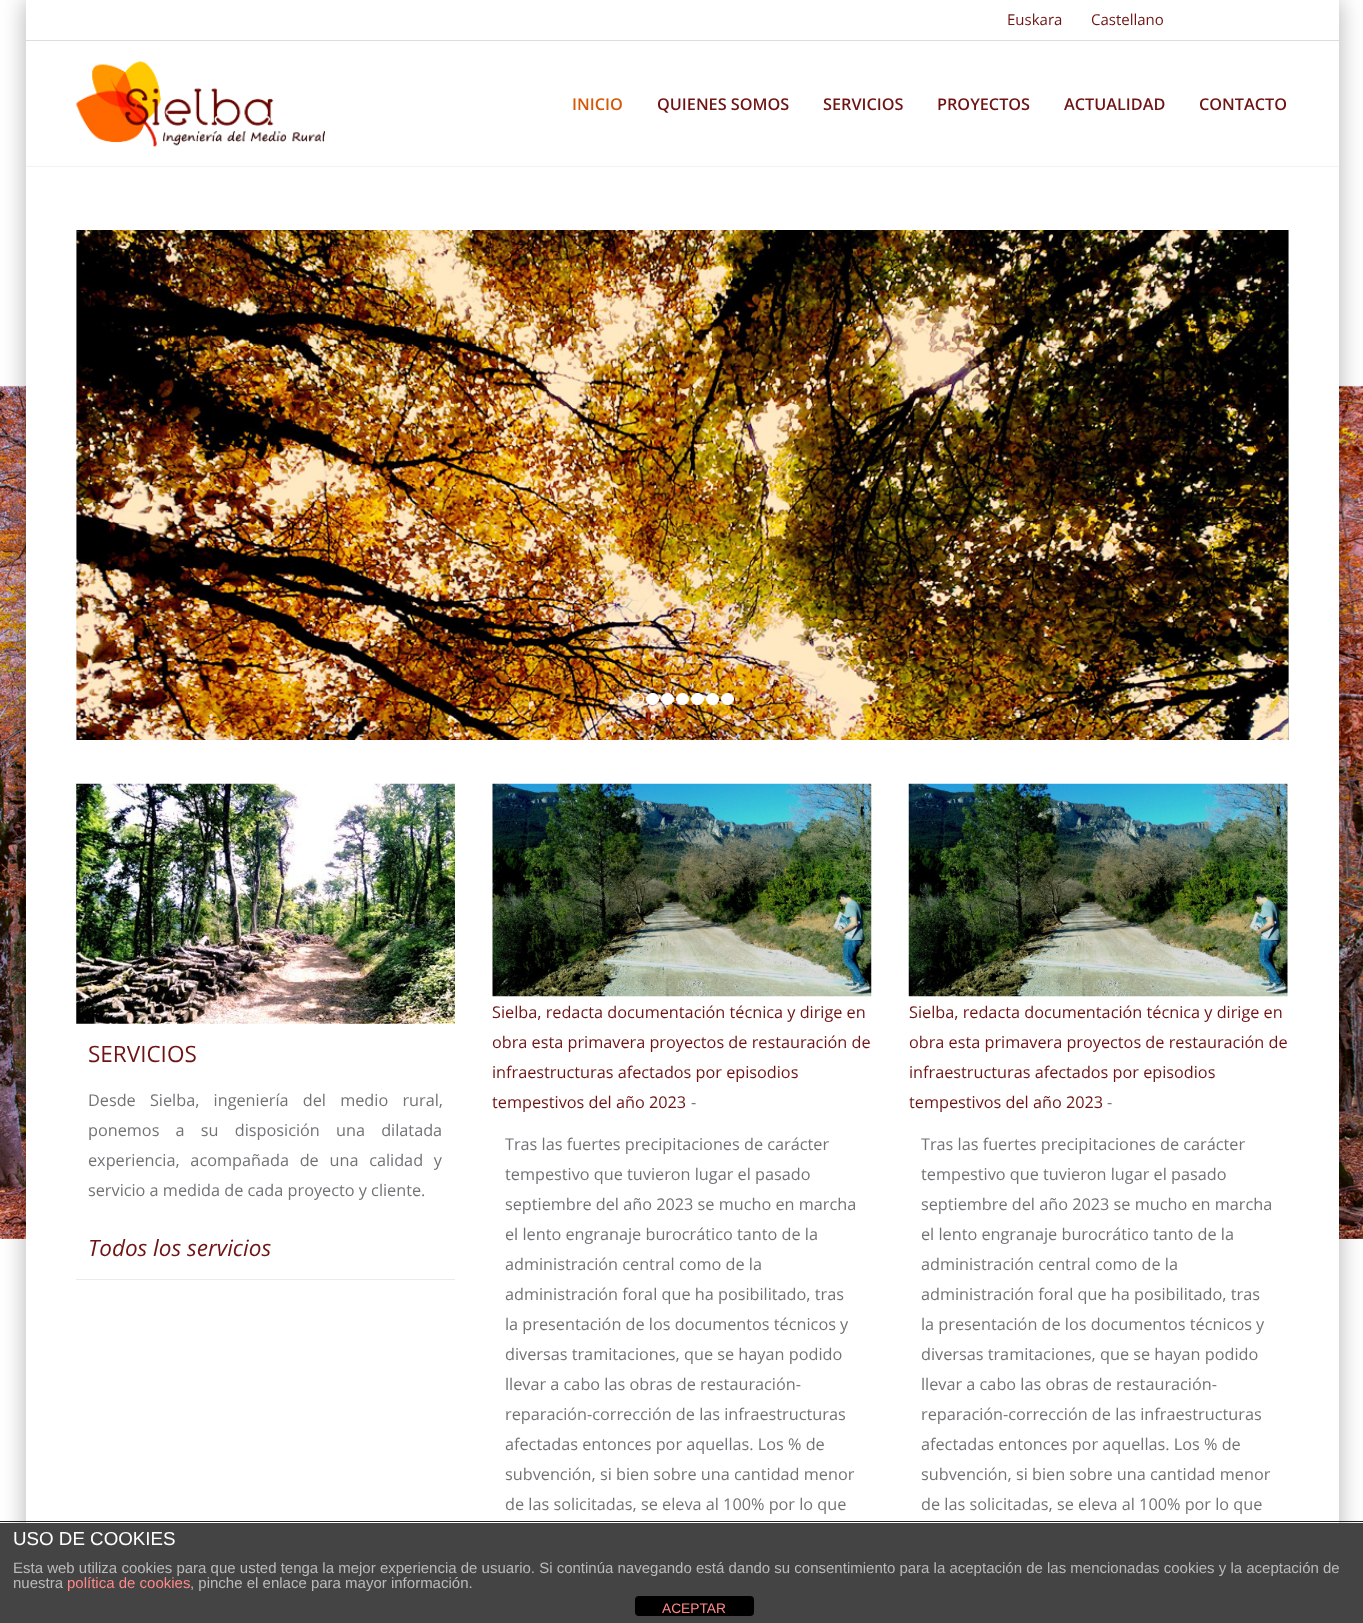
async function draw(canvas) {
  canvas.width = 1363
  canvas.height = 1623
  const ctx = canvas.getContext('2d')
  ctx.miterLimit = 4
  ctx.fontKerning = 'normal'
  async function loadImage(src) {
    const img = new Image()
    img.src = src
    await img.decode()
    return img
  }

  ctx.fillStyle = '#fff'
  ctx.fillRect(0, 0, 1363, 1623)
  ctx.drawImage(await loadImage('image0.png'), 0, 385, 1363, 854)
  ctx.fillStyle = '#0000004d'
  ctx.filter = 'blur(12.5px)'
  ctx.beginPath()
  ctx.rect(26, 0, 1313, 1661)
  ctx.fill()
  ctx.filter = 'none'
  ctx.fillStyle = '#fff'
  ctx.fillRect(26, 0, 1313, 1523)
  ctx.fillStyle = '#ddd'
  ctx.fillRect(26, 40, 1313, 1)
  ctx.font = '15px Open Sans'
  ctx.fillStyle = '#6e1414'
  ctx.fillText('Euskara', 1007, 25)
  ctx.fillText('Castellano', 1091, 25)
  ctx.fillStyle = '#f3f3f3'
  ctx.fillRect(26, 166, 1313, 1)
  ctx.drawImage(await loadImage('image1.png'), 76, 61, 249, 86)
  ctx.font = '600 16.25px Open Sans'
  ctx.fillStyle = '#d45805'
  ctx.fillText('INICIO', 572, 110)
  ctx.fillStyle = '#6e1414'
  ctx.fillText('QUIENES SOMOS', 657, 110)
  ctx.fillText('SERVICIOS', 823, 110)
  ctx.fillText('PROYECTOS', 937, 110)
  ctx.fillText('ACTUALIDAD', 1064, 110)
  ctx.fillText('CONTACTO', 1199, 110)
  ctx.drawImage(await loadImage('image2.png'), 76, 230, 1213, 510)
  ctx.drawImage(await loadImage('image3.png'), 1288, 230, 1, 510)
  ctx.beginPath()
  ctx.roundRect(631.5, 693.5, 12, 11, 5.5)
  ctx.strokeStyle = '#fff'
  ctx.stroke()
  ctx.fillStyle = '#fff'
  ctx.beginPath()
  ctx.roundRect(646.5, 693.5, 12, 11, 5.5)
  ctx.fill()
  ctx.stroke()
  ctx.beginPath()
  ctx.roundRect(661.5, 693.5, 12, 11, 5.5)
  ctx.fill()
  ctx.stroke()
  ctx.beginPath()
  ctx.roundRect(676.5, 693.5, 12, 11, 5.5)
  ctx.fill()
  ctx.stroke()
  ctx.beginPath()
  ctx.roundRect(691.5, 693.5, 12, 11, 5.5)
  ctx.fill()
  ctx.stroke()
  ctx.beginPath()
  ctx.roundRect(706.5, 693.5, 12, 11, 5.5)
  ctx.fill()
  ctx.stroke()
  ctx.beginPath()
  ctx.roundRect(721.5, 693.5, 12, 11, 5.5)
  ctx.fill()
  ctx.stroke()
  ctx.drawImage(await loadImage('image4.png'), 76, 783, 379, 241)
  ctx.font = '22.5px Open Sans'
  ctx.fillStyle = '#6e1414'
  ctx.fillText('SERVICIOS', 88, 1062)
  ctx.wordSpacing = '10px'
  ctx.font = '16.25px Open Sans'
  ctx.fillStyle = '#717375'
  ctx.fillText('Desde Sielba, ingeniería del medio rural,', 88, 1106)
  ctx.wordSpacing = '12px'
  ctx.fillText('ponemos a su disposición una dilatada', 88, 1136)
  ctx.wordSpacing = '6.5px'
  ctx.fillText('experiencia, acompañada de una calidad y', 88, 1166)
  ctx.wordSpacing = '0px'
  ctx.fillText('servicio a medida de cada proyecto y cliente.', 88, 1196)
  ctx.font = 'italic 22.5px Open Sans'
  ctx.fillStyle = '#6e1414'
  ctx.fillText('Todos los servicios', 88, 1256)
  ctx.fillStyle = '#ebebeb'
  ctx.fillRect(76, 1279, 379, 1)
  ctx.drawImage(await loadImage('image5.png'), 492, 783, 380, 214)
  ctx.font = '16.25px Open Sans'
  ctx.fillStyle = '#6e1414'
  ctx.fillText('Sielba, redacta documentación técnica y dirige en', 492, 1018)
  ctx.fillText('obra esta primavera proyectos de restauración de', 492, 1048)
  ctx.fillText('infraestructuras afectados por episodios', 492, 1078)
  ctx.fillText('tempestivos del año 2023', 492, 1108)
  ctx.fillStyle = '#717375'
  ctx.fillText('-', 691, 1108)
  ctx.fillText('Tras las fuertes precipitaciones de carácter', 505, 1150)
  ctx.fillText('tempestivo que tuvieron lugar el pasado', 505, 1180)
  ctx.fillText('septiembre del año 2023 se mucho en marcha', 505, 1210)
  ctx.fillText('el lento engranaje burocrático tanto de la', 505, 1240)
  ctx.fillText('administración central como de la', 505, 1270)
  ctx.fillText('administración foral que ha posibilitado, tras', 505, 1300)
  ctx.fillText('la presentación de los documentos técnicos y', 505, 1330)
  ctx.fillText('diversas tramitaciones, que se hayan podido', 505, 1360)
  ctx.fillText('llevar a cabo las obras de restauración-', 505, 1390)
  ctx.fillText('reparación-corrección de las infraestructuras', 505, 1420)
  ctx.fillText('afectadas entonces por aquellas. Los % de', 505, 1450)
  ctx.fillText('subvención, si bien sobre una cantidad menor', 505, 1480)
  ctx.fillText('de las solicitadas, se eleva al 100% por lo que', 505, 1510)
  ctx.drawImage(await loadImage('image6.png'), 908, 783, 380, 214)
  ctx.fillStyle = '#6e1414'
  ctx.fillText('Sielba, redacta documentación técnica y dirige en', 909, 1018)
  ctx.fillText('obra esta primavera proyectos de restauración de', 909, 1048)
  ctx.fillText('infraestructuras afectados por episodios', 909, 1078)
  ctx.fillText('tempestivos del año 2023', 909, 1108)
  ctx.fillStyle = '#717375'
  ctx.fillText('-', 1107, 1108)
  ctx.fillText('Tras las fuertes precipitaciones de carácter', 921, 1150)
  ctx.fillText('tempestivo que tuvieron lugar el pasado', 921, 1180)
  ctx.fillText('septiembre del año 2023 se mucho en marcha', 921, 1210)
  ctx.fillText('el lento engranaje burocrático tanto de la', 921, 1240)
  ctx.fillText('administración central como de la', 921, 1270)
  ctx.fillText('administración foral que ha posibilitado, tras', 921, 1300)
  ctx.fillText('la presentación de los documentos técnicos y', 921, 1330)
  ctx.fillText('diversas tramitaciones, que se hayan podido', 921, 1360)
  ctx.fillText('llevar a cabo las obras de restauración-', 921, 1390)
  ctx.fillText('reparación-corrección de las infraestructuras', 921, 1420)
  ctx.fillText('afectadas entonces por aquellas. Los % de', 921, 1450)
  ctx.fillText('subvención, si bien sobre una cantidad menor', 921, 1480)
  ctx.fillText('de las solicitadas, se eleva al 100% por lo que', 921, 1510)
  ctx.fillStyle = '#444'
  ctx.fillRect(0, 1523, 1363, 100)
  ctx.fillStyle = '#222'
  ctx.fillRect(0, 1521, 1363, 1)
  ctx.font = '18.75px Liberation Sans'
  ctx.fillStyle = '#fff'
  ctx.fillText('USO DE COOKIES', 13, 1545)
  ctx.font = '15px Liberation Sans'
  ctx.fillStyle = '#bbb'
  ctx.fillText('Esta web utiliza cookies para que usted tenga la mejor experiencia de usuario. Si continúa navegando está dando su consentimiento para la aceptación de las mencionadas cookies y la aceptación de', 13, 1573)
  ctx.fillText('nuestra', 13, 1588)
  ctx.fillStyle = '#f88'
  ctx.fillText('política de cookies', 67, 1588)
  ctx.fillStyle = '#bbb'
  ctx.fillText(', pinche el enlace para mayor información.', 190, 1588)
  ctx.fillStyle = '#000'
  ctx.beginPath()
  ctx.roundRect(635, 1596, 119, 20, 4)
  ctx.fill()
  ctx.font = '13.75px Liberation Sans'
  ctx.fillStyle = '#f88'
  ctx.fillText('ACEPTAR', 662, 1613)
}

draw(document.querySelector('canvas'))
